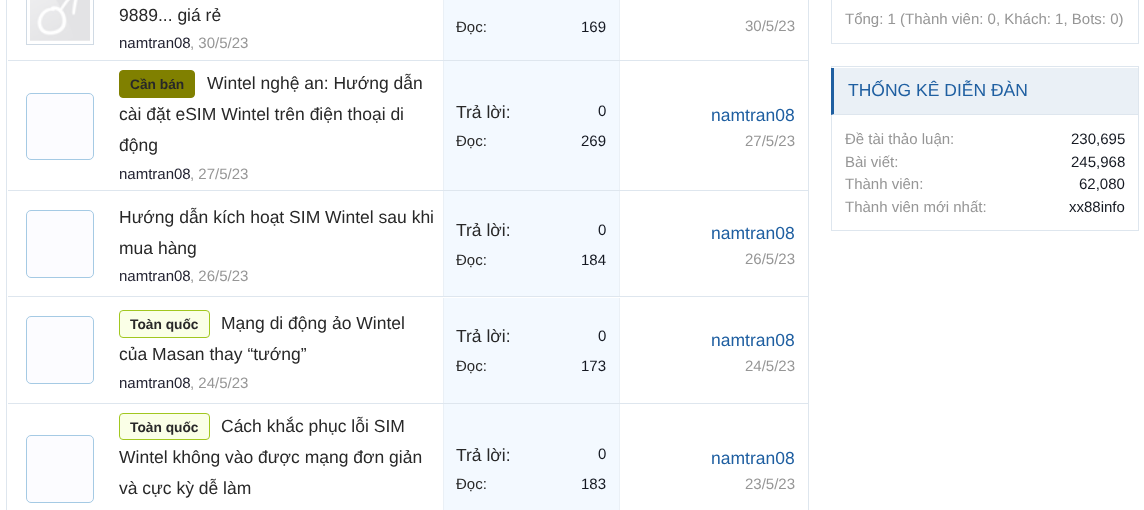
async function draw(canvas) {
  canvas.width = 1144
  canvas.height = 510
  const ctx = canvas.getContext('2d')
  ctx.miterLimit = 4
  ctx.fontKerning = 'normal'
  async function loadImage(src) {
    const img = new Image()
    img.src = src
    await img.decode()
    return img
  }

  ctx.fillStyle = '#fff'
  ctx.fillRect(0, 0, 1144, 510)
  ctx.strokeStyle = '#dee6ee'
  ctx.strokeRect(6.5, -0.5, 802, 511)
  ctx.fillStyle = '#dee6ee'
  ctx.fillRect(8, 60, 800, 1)
  ctx.strokeStyle = '#d0dae4'
  ctx.strokeRect(26.5, -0.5, 67, 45)
  ctx.drawImage(await loadImage('image0.png'), 30, 0, 60, 41)
  ctx.font = '17.5px Liberation Sans'
  ctx.fillStyle = '#282828'
  ctx.fillText('9889... giá rẻ', 119, 21)
  ctx.font = '15px Liberation Sans'
  ctx.fillStyle = '#232332'
  ctx.fillText('namtran08', 119, 48)
  ctx.fillStyle = '#969696'
  ctx.fillText(', 30/5/23', 190, 48)
  ctx.fillStyle = '#f3f9ff'
  ctx.fillRect(444, 0, 175, 60)
  ctx.fillStyle = '#eaf0f6'
  ctx.fillRect(619, 0, 1, 60)
  ctx.fillRect(443, 0, 1, 60)
  ctx.fillStyle = '#282828'
  ctx.fillText('Đọc:', 456, 32)
  ctx.fillStyle = '#151922'
  ctx.fillText('169', 581, 32)
  ctx.fillStyle = '#969696'
  ctx.fillText('30/5/23', 745, 31)
  ctx.fillStyle = '#dee6ee'
  ctx.fillRect(8, 190, 800, 1)
  ctx.fillStyle = '#fcfcff'
  ctx.beginPath()
  ctx.roundRect(26.5, 93.5, 67, 66, 4.5)
  ctx.fill()
  ctx.strokeStyle = '#a5cae4'
  ctx.stroke()
  ctx.fillStyle = '#808000'
  ctx.beginPath()
  ctx.roundRect(119.5, 70.5, 75, 27, 3.5)
  ctx.fill()
  ctx.strokeStyle = '#808000'
  ctx.stroke()
  ctx.font = 'bold 13.75px Liberation Sans'
  ctx.fillStyle = '#282828'
  ctx.fillText('Cần bán', 130, 89)
  ctx.font = '17.5px Liberation Sans'
  ctx.fillText('Wintel nghệ an: Hướng dẫn', 207, 89)
  ctx.fillText('cài đặt eSIM Wintel trên điện thoại di', 119, 120)
  ctx.fillText('động', 119, 151)
  ctx.font = '15px Liberation Sans'
  ctx.fillStyle = '#232332'
  ctx.fillText('namtran08', 119, 179)
  ctx.fillStyle = '#969696'
  ctx.fillText(', 27/5/23', 190, 179)
  ctx.fillStyle = '#f3f9ff'
  ctx.fillRect(444, 61, 175, 129)
  ctx.fillStyle = '#eaf0f6'
  ctx.fillRect(619, 61, 1, 129)
  ctx.fillRect(443, 61, 1, 129)
  ctx.font = '17.5px Liberation Sans'
  ctx.fillStyle = '#282828'
  ctx.fillText('Trả lời:', 456, 118)
  ctx.font = '15px Liberation Sans'
  ctx.fillStyle = '#151922'
  ctx.fillText('0', 598, 116)
  ctx.fillStyle = '#282828'
  ctx.fillText('Đọc:', 456, 146)
  ctx.fillStyle = '#151922'
  ctx.fillText('269', 581, 146)
  ctx.font = '17.5px Liberation Sans'
  ctx.fillStyle = '#1f5fa1'
  ctx.fillText('namtran08', 711, 121)
  ctx.font = '15px Liberation Sans'
  ctx.fillStyle = '#969696'
  ctx.fillText('27/5/23', 745, 146)
  ctx.fillStyle = '#dee6ee'
  ctx.fillRect(8, 296, 800, 1)
  ctx.fillStyle = '#fcfcff'
  ctx.beginPath()
  ctx.roundRect(26.5, 210.5, 67, 67, 4.5)
  ctx.fill()
  ctx.strokeStyle = '#a5cae4'
  ctx.stroke()
  ctx.font = '17.5px Liberation Sans'
  ctx.fillStyle = '#282828'
  ctx.fillText('Hướng dẫn kích hoạt SIM Wintel sau khi', 119, 223)
  ctx.fillText('mua hàng', 119, 254)
  ctx.font = '15px Liberation Sans'
  ctx.fillStyle = '#232332'
  ctx.fillText('namtran08', 119, 281)
  ctx.fillStyle = '#969696'
  ctx.fillText(', 26/5/23', 190, 281)
  ctx.fillStyle = '#f3f9ff'
  ctx.fillRect(444, 191, 175, 105)
  ctx.fillStyle = '#eaf0f6'
  ctx.fillRect(619, 191, 1, 105)
  ctx.fillRect(443, 191, 1, 105)
  ctx.font = '17.5px Liberation Sans'
  ctx.fillStyle = '#282828'
  ctx.fillText('Trả lời:', 456, 236)
  ctx.font = '15px Liberation Sans'
  ctx.fillStyle = '#151922'
  ctx.fillText('0', 598, 235)
  ctx.fillStyle = '#282828'
  ctx.fillText('Đọc:', 456, 265)
  ctx.fillStyle = '#151922'
  ctx.fillText('184', 581, 265)
  ctx.font = '17.5px Liberation Sans'
  ctx.fillStyle = '#1f5fa1'
  ctx.fillText('namtran08', 711, 239)
  ctx.font = '15px Liberation Sans'
  ctx.fillStyle = '#969696'
  ctx.fillText('26/5/23', 745, 264)
  ctx.fillStyle = '#dee6ee'
  ctx.fillRect(8, 403, 800, 1)
  ctx.fillStyle = '#fcfcff'
  ctx.beginPath()
  ctx.roundRect(26.5, 316.5, 67, 67, 4.5)
  ctx.fill()
  ctx.stroke()
  ctx.fillStyle = '#faffe7'
  ctx.beginPath()
  ctx.roundRect(119.5, 310.5, 90, 27, 3.5)
  ctx.fill()
  ctx.strokeStyle = '#a1c71f'
  ctx.stroke()
  ctx.font = 'bold 13.75px Liberation Sans'
  ctx.fillStyle = '#282828'
  ctx.fillText('Toàn quốc', 130, 329)
  ctx.font = '17.5px Liberation Sans'
  ctx.fillText('Mạng di động ảo Wintel', 221, 329)
  ctx.fillText('của Masan thay “tướng”', 119, 360)
  ctx.font = '15px Liberation Sans'
  ctx.fillStyle = '#232332'
  ctx.fillText('namtran08', 119, 388)
  ctx.fillStyle = '#969696'
  ctx.fillText(', 24/5/23', 190, 388)
  ctx.fillStyle = '#f3f9ff'
  ctx.fillRect(444, 298, 175, 105)
  ctx.fillStyle = '#eaf0f6'
  ctx.fillRect(619, 298, 1, 105)
  ctx.fillRect(443, 298, 1, 105)
  ctx.font = '17.5px Liberation Sans'
  ctx.fillStyle = '#282828'
  ctx.fillText('Trả lời:', 456, 342)
  ctx.font = '15px Liberation Sans'
  ctx.fillStyle = '#151922'
  ctx.fillText('0', 598, 341)
  ctx.fillStyle = '#282828'
  ctx.fillText('Đọc:', 456, 371)
  ctx.fillStyle = '#151922'
  ctx.fillText('173', 581, 371)
  ctx.font = '17.5px Liberation Sans'
  ctx.fillStyle = '#1f5fa1'
  ctx.fillText('namtran08', 711, 346)
  ctx.font = '15px Liberation Sans'
  ctx.fillStyle = '#969696'
  ctx.fillText('24/5/23', 745, 371)
  ctx.fillStyle = '#fcfcff'
  ctx.beginPath()
  ctx.roundRect(26.5, 435.5, 67, 67, 4.5)
  ctx.fill()
  ctx.strokeStyle = '#a5cae4'
  ctx.stroke()
  ctx.fillStyle = '#faffe7'
  ctx.beginPath()
  ctx.roundRect(119.5, 413.5, 90, 26, 3.5)
  ctx.fill()
  ctx.strokeStyle = '#a1c71f'
  ctx.stroke()
  ctx.font = 'bold 13.75px Liberation Sans'
  ctx.fillStyle = '#282828'
  ctx.fillText('Toàn quốc', 130, 432)
  ctx.font = '17.5px Liberation Sans'
  ctx.fillText('Cách khắc phục lỗi SIM', 221, 432)
  ctx.fillText('Wintel không vào được mạng đơn giản', 119, 463)
  ctx.fillText('và cực kỳ dễ làm', 119, 494)
  ctx.fillStyle = '#f3f9ff'
  ctx.fillRect(444, 404, 175, 106)
  ctx.fillStyle = '#eaf0f6'
  ctx.fillRect(619, 404, 1, 106)
  ctx.fillRect(443, 404, 1, 106)
  ctx.fillStyle = '#282828'
  ctx.fillText('Trả lời:', 456, 461)
  ctx.font = '15px Liberation Sans'
  ctx.fillStyle = '#151922'
  ctx.fillText('0', 598, 459)
  ctx.fillStyle = '#282828'
  ctx.fillText('Đọc:', 456, 489)
  ctx.fillStyle = '#151922'
  ctx.fillText('183', 581, 489)
  ctx.font = '17.5px Liberation Sans'
  ctx.fillStyle = '#1f5fa1'
  ctx.fillText('namtran08', 711, 464)
  ctx.font = '15px Liberation Sans'
  ctx.fillStyle = '#969696'
  ctx.fillText('23/5/23', 745, 489)
  ctx.strokeStyle = '#dee6ee'
  ctx.strokeRect(831.5, -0.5, 307, 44)
  ctx.fillText('Tổng: 1 (Thành viên: 0, Khách: 1, Bots: 0)', 845, 24)
  ctx.strokeRect(831.5, 66.5, 307, 164)
  ctx.fillStyle = '#eaf0f6'
  ctx.fillRect(831, 68, 307, 47)
  ctx.fillStyle = '#dee6ee'
  ctx.beginPath()
  ctx.moveTo(1138, 115)
  ctx.lineTo(831, 115)
  ctx.lineTo(834, 114)
  ctx.lineTo(1138, 114)
  ctx.closePath()
  ctx.fill()
  ctx.fillStyle = '#1f5fa1'
  ctx.beginPath()
  ctx.moveTo(831, 115)
  ctx.lineTo(831, 68)
  ctx.lineTo(834, 68)
  ctx.lineTo(834, 114)
  ctx.closePath()
  ctx.fill()
  ctx.font = '17.5px Liberation Sans'
  ctx.fillText('THỐNG KÊ DIỄN ĐÀN', 848, 96)
  ctx.font = '15px Liberation Sans'
  ctx.fillStyle = '#969696'
  ctx.fillText('Đề tài thảo luận:', 845, 144)
  ctx.fillStyle = '#151922'
  ctx.fillText('230,695', 1071, 144)
  ctx.fillStyle = '#969696'
  ctx.fillText('Bài viết:', 845, 167)
  ctx.fillStyle = '#151922'
  ctx.fillText('245,968', 1071, 167)
  ctx.fillStyle = '#969696'
  ctx.fillText('Thành viên:', 845, 189)
  ctx.fillStyle = '#151922'
  ctx.fillText('62,080', 1079, 189)
  ctx.fillStyle = '#969696'
  ctx.fillText('Thành viên mới nhất:', 845, 212)
  ctx.fillStyle = '#151922'
  ctx.fillText('xx88info', 1069, 212)
}

draw(document.querySelector('canvas'))
